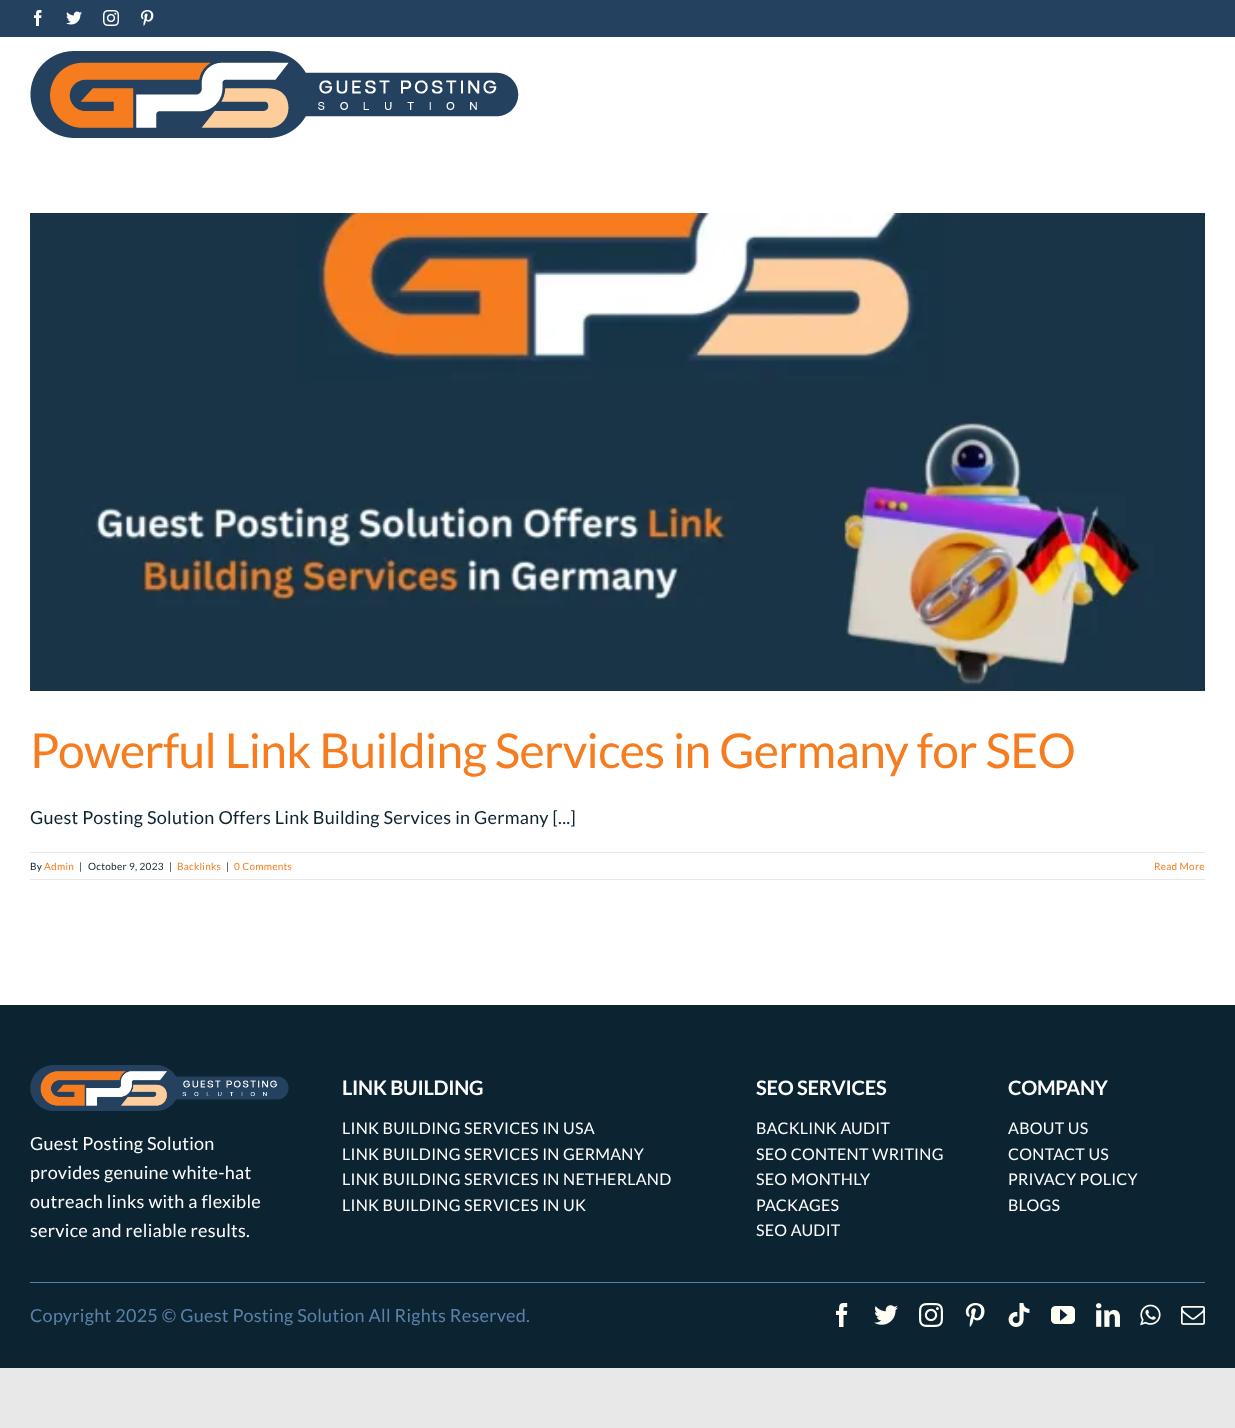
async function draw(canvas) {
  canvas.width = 1235
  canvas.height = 1428
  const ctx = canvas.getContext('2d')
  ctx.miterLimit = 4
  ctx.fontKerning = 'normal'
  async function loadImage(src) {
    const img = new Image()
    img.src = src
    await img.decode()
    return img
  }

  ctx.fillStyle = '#e8e8e8'
  ctx.fillRect(0, 0, 1235, 1428)
  ctx.fillStyle = '#fff'
  ctx.fillRect(0, 37, 1235, 968)
  ctx.fillStyle = '#24415f'
  ctx.fillRect(0, 0, 1235, 37)
  ctx.drawImage(await loadImage('image0.png'), 34, 10, 8, 16)
  ctx.drawImage(await loadImage('image1.png'), 66, 11, 16, 14)
  ctx.drawImage(await loadImage('image2.png'), 103, 10, 16, 16)
  ctx.drawImage(await loadImage('image3.png'), 140, 10, 14, 16)
  ctx.drawImage(await loadImage('image4.png'), 30, 51, 489, 87)
  ctx.drawImage(await loadImage('image5.png'), 30, 213, 1175, 478)
  ctx.letterSpacing = '-0.7px'
  ctx.font = '48px Lato'
  ctx.fillStyle = '#f57d20'
  ctx.fillText('Powerful Link Building Services in Germany for SEO', 30, 768)
  ctx.letterSpacing = '0.27px'
  ctx.font = '18px Lato'
  ctx.fillStyle = '#0c2332'
  ctx.fillText('Guest Posting Solution Offers Link Building Services in Germany [...]', 30, 824)
  ctx.fillStyle = '#e8e8e8'
  ctx.fillRect(30, 852, 1175, 1)
  ctx.fillRect(30, 879, 1175, 1)
  ctx.font = '10px Lato'
  ctx.fillStyle = '#0c2332'
  ctx.fillText('By', 30, 870)
  ctx.fillStyle = '#f57d20'
  ctx.fillText('Admin', 44, 870)
  ctx.fillStyle = '#0c2332'
  ctx.fillText('|', 79, 870)
  ctx.fillText('October 9, 2023', 88, 870)
  ctx.fillText('|', 169, 870)
  ctx.fillStyle = '#f57d20'
  ctx.fillText('Backlinks', 177, 870)
  ctx.fillStyle = '#0c2332'
  ctx.fillText('|', 226, 870)
  ctx.fillStyle = '#f57d20'
  ctx.fillText('0 Comments', 234, 870)
  ctx.fillText('Read More', 1154, 870)
  ctx.fillStyle = '#0c2332'
  ctx.fillRect(0, 1005, 1235, 363)
  ctx.drawImage(await loadImage('image6.png'), 30, 1065, 259, 46)
  ctx.font = '18px Lato'
  ctx.fillStyle = '#fff'
  ctx.fillText('Guest Posting Solution', 30, 1150)
  ctx.fillText('provides genuine white-hat', 30, 1179)
  ctx.fillText('outreach links with a flexible', 30, 1208)
  ctx.fillText('service and reliable results.', 30, 1237)
  ctx.letterSpacing = '-0.25px'
  ctx.font = 'bold 20px Lato'
  ctx.fillText('LINK BUILDING', 342, 1095)
  ctx.letterSpacing = '0.27px'
  ctx.font = '16px Lato'
  ctx.fillText('LINK BUILDING SERVICES IN USA', 342, 1134)
  ctx.fillText('LINK BUILDING SERVICES IN GERMANY', 342, 1160)
  ctx.fillText('LINK BUILDING SERVICES IN NETHERLAND', 342, 1185)
  ctx.fillText('LINK BUILDING SERVICES IN UK', 342, 1211)
  ctx.letterSpacing = '-0.25px'
  ctx.font = 'bold 20px Lato'
  ctx.fillText('SEO SERVICES', 756, 1095)
  ctx.letterSpacing = '0.27px'
  ctx.font = '16px Lato'
  ctx.fillText('BACKLINK AUDIT', 756, 1134)
  ctx.fillText('SEO CONTENT WRITING', 756, 1160)
  ctx.fillText('SEO MONTHLY', 756, 1185)
  ctx.fillText('PACKAGES', 756, 1211)
  ctx.fillText('SEO AUDIT', 756, 1236)
  ctx.letterSpacing = '-0.25px'
  ctx.font = 'bold 20px Lato'
  ctx.fillText('COMPANY', 1008, 1095)
  ctx.letterSpacing = '0.27px'
  ctx.font = '16px Lato'
  ctx.fillText('ABOUT US', 1008, 1134)
  ctx.fillText('CONTACT US', 1008, 1160)
  ctx.fillText('PRIVACY POLICY', 1008, 1185)
  ctx.fillText('BLOGS', 1008, 1211)
  ctx.fillStyle = '#5a82a8'
  ctx.fillRect(30, 1282, 1175, 1)
  ctx.font = '18px Lato'
  ctx.fillText('Copyright 2025 © Guest Posting Solution All Rights Reserved.', 30, 1322)
  ctx.drawImage(await loadImage('image7.png'), 836, 1303, 12, 24)
  ctx.drawImage(await loadImage('image8.png'), 874, 1305, 24, 20)
  ctx.drawImage(await loadImage('image9.png'), 919, 1303, 24, 24)
  ctx.drawImage(await loadImage('image10.png'), 965, 1303, 20, 24)
  ctx.drawImage(await loadImage('image11.png'), 1008, 1303, 22, 24)
  ctx.drawImage(await loadImage('image12.png'), 1051, 1306, 24, 18)
  ctx.drawImage(await loadImage('image13.png'), 1096, 1303, 24, 24)
  ctx.drawImage(await loadImage('image14.png'), 1140, 1304, 21, 22)
  ctx.drawImage(await loadImage('image15.png'), 1181, 1306, 24, 19)
}

draw(document.querySelector('canvas'))
